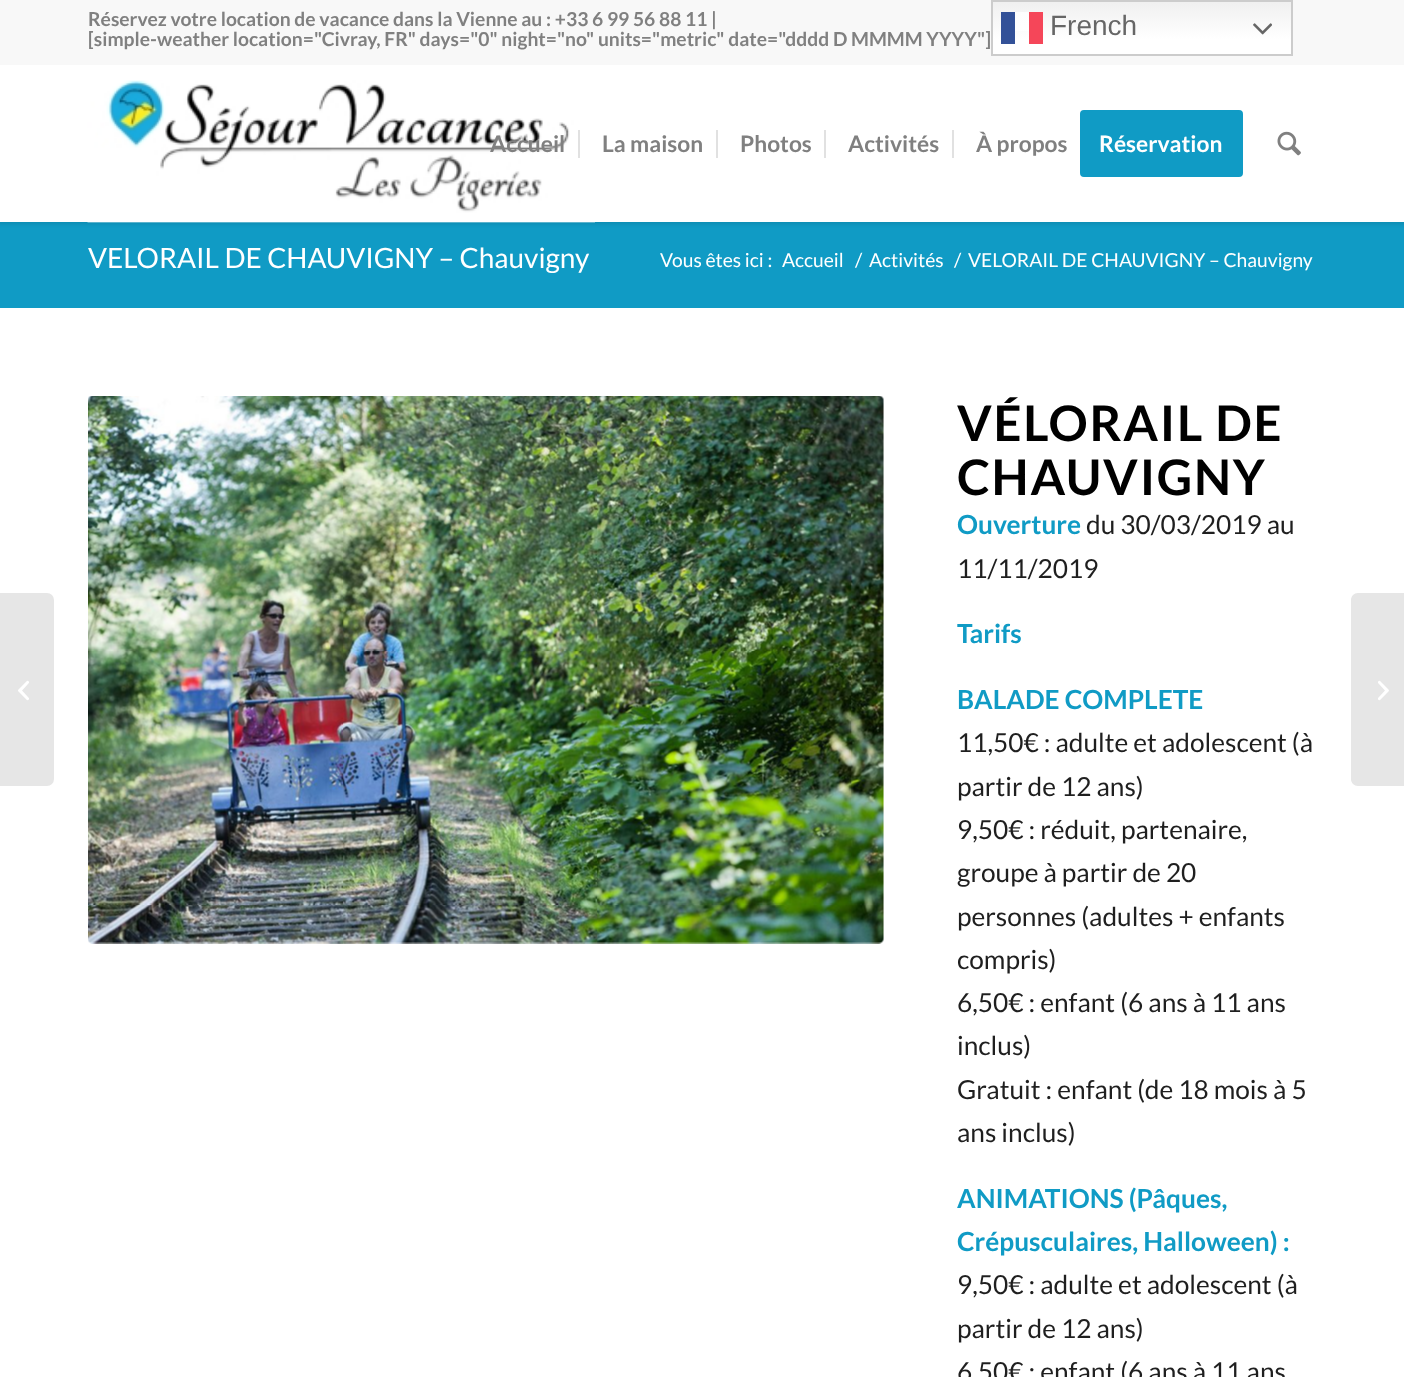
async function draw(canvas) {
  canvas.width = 1404
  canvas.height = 1377
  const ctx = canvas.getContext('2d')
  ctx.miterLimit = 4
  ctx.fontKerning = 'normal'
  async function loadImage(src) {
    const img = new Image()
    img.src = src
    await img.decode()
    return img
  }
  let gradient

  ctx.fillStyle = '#fff'
  ctx.fillRect(0, 0, 1404, 1377)
  ctx.fillStyle = '#109bc5'
  ctx.fillRect(0, 222, 1404, 86)
  ctx.fillStyle = '#0000001a'
  ctx.filter = 'blur(2px)'
  ctx.beginPath()
  ctx.rect(-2, -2, 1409, 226)
  ctx.fill()
  ctx.filter = 'none'
  ctx.fillStyle = '#f8f8f8'
  ctx.fillRect(0, 0, 1404, 65)
  ctx.font = 'bold 19.25px Lato'
  ctx.fillStyle = '#808080'
  ctx.fillText('Réservez votre location de vacance dans la Vienne au : +33 6 99 56 88 11 |', 88, 26)
  ctx.fillText('[simple-weather location="Civray, FR" days="0" night="no" units="metric" date="dddd D MMMM YYYY"]', 88, 46)
  ctx.fillStyle = '#fff'
  ctx.fillRect(0, 65, 1404, 157)
  ctx.drawImage(await loadImage('image0.png'), 87, 80, 508, 143)
  ctx.font = 'bold 22.75px Lato'
  ctx.fillStyle = '#808080'
  ctx.fillText('Accueil', 490, 152)
  ctx.fillText('La maison', 602, 152)
  ctx.fillStyle = '#e1e1e1'
  ctx.fillRect(578, 130, 2, 28)
  ctx.fillStyle = '#808080'
  ctx.fillText('Photos', 740, 152)
  ctx.fillStyle = '#e1e1e1'
  ctx.fillRect(716, 130, 2, 28)
  ctx.fillStyle = '#808080'
  ctx.fillText('Activités', 848, 152)
  ctx.fillStyle = '#e1e1e1'
  ctx.fillRect(824, 130, 2, 28)
  ctx.fillStyle = '#808080'
  ctx.fillText('À propos', 976, 152)
  ctx.fillStyle = '#e1e1e1'
  ctx.fillRect(952, 130, 2, 28)
  ctx.fillStyle = '#109bc5'
  ctx.beginPath()
  ctx.roundRect(1082, 112, 159, 63, 2)
  ctx.fill()
  ctx.strokeStyle = '#109bc5'
  ctx.lineWidth = 4
  ctx.stroke()
  ctx.fillStyle = '#fff'
  ctx.fillText('Réservation', 1099, 152)
  ctx.drawImage(await loadImage('image1.png'), 1277, 131, 24, 25)
  ctx.fillStyle = '#e6e6e6'
  ctx.beginPath()
  ctx.roundRect(0, 593, 54, 193, [0, 7, 7, 0])
  ctx.fill()
  ctx.drawImage(await loadImage('image2.png'), 18, 680, 11, 21)
  ctx.font = '28px Lato'
  ctx.fillStyle = '#fff'
  ctx.fillText('VELORAIL DE CHAUVIGNY – Chauvigny', 88, 268)
  ctx.font = '19.25px Lato'
  ctx.fillText('Vous êtes ici :', 660, 267)
  ctx.fillText('Accueil', 782, 267)
  ctx.fillText('/', 855, 267)
  ctx.fillText('Activités', 869, 267)
  ctx.fillText('/', 954, 267)
  ctx.fillText('VELORAIL DE CHAUVIGNY – Chauvigny', 968, 267)
  ctx.drawImage(await loadImage('image3.png'), 88, 396, 796, 548)
  ctx.letterSpacing = '1.75px'
  ctx.font = 'bold 49px Lato'
  ctx.fillStyle = '#000'
  ctx.fillText('VÉLORAIL DE', 957, 441)
  ctx.fillText('CHAUVIGNY', 957, 495)
  ctx.letterSpacing = '0px'
  ctx.font = 'bold 26.25px Lato'
  ctx.fillStyle = '#109bc5'
  ctx.fillText('Ouverture', 957, 534)
  ctx.font = '26.25px Lato'
  ctx.fillStyle = '#1f1f1f'
  ctx.fillText('du 30/03/2019 au', 1086, 534)
  ctx.fillText('11/11/2019', 957, 578)
  ctx.font = 'bold 26.25px Lato'
  ctx.fillStyle = '#109bc5'
  ctx.fillText('Tarifs', 957, 643)
  ctx.fillText('BALADE COMPLETE', 957, 709)
  ctx.font = '26.25px Lato'
  ctx.fillStyle = '#1f1f1f'
  ctx.fillText('11,50€ : adulte et adolescent (à', 957, 752)
  ctx.fillText('partir de 12 ans)', 957, 796)
  ctx.fillText('9,50€ : réduit, partenaire,', 957, 839)
  ctx.fillText('groupe à partir de 20', 957, 882)
  ctx.fillText('personnes (adultes + enfants', 957, 926)
  ctx.fillText('compris)', 957, 969)
  ctx.fillText('6,50€ : enfant (6 ans à 11 ans', 957, 1012)
  ctx.fillText('inclus)', 957, 1055)
  ctx.fillText('Gratuit : enfant (de 18 mois à 5', 957, 1099)
  ctx.fillText('ans inclus)', 957, 1142)
  ctx.font = 'bold 26.25px Lato'
  ctx.fillStyle = '#109bc5'
  ctx.fillText('ANIMATIONS (Pâques,', 957, 1208)
  ctx.fillText('Crépusculaires, Halloween) :', 957, 1251)
  ctx.font = '26.25px Lato'
  ctx.fillStyle = '#1f1f1f'
  ctx.fillText('9,50€ : adulte et adolescent (à', 957, 1294)
  ctx.fillText('partir de 12 ans)', 957, 1338)
  ctx.fillText('6,50€ : enfant (6 ans à 11 ans', 957, 1381)
  ctx.fillStyle = '#e6e6e6'
  ctx.beginPath()
  ctx.moveTo(1358, 593)
  ctx.lineTo(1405, 593)
  ctx.lineTo(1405, 786)
  ctx.lineTo(1358, 786)
  ctx.bezierCurveTo(1354, 786, 1351, 783, 1351, 779)
  ctx.lineTo(1351, 600)
  ctx.bezierCurveTo(1351, 596, 1354, 593, 1358, 593)
  ctx.closePath()
  ctx.fill()
  ctx.drawImage(await loadImage('image4.png'), 1378, 680, 11, 21)
  gradient = ctx.createLinearGradient(1142, 0, 1142, 56)
  gradient.addColorStop(0, '#efefef')
  gradient.addColorStop(0.7, '#fff')
  ctx.fillStyle = gradient
  ctx.fillRect(993, 2, 298, 52)
  gradient = ctx.createLinearGradient(1142, 0, 1142, 56)
  gradient.addColorStop(0, '#fcfcfc')
  gradient.addColorStop(0.7, '#fff')
  ctx.fillStyle = gradient
  ctx.fillRect(1015, 12, 14, 19)
  ctx.strokeStyle = '#ccc'
  ctx.lineWidth = 2
  ctx.strokeRect(992, 1, 300, 54)
  ctx.fillStyle = '#335198'
  ctx.fillRect(1001, 12, 14, 32)
  ctx.fillStyle = '#f54659'
  ctx.fillRect(1029, 12, 14, 32)
  ctx.font = '28px Liberation Sans'
  ctx.fillStyle = '#666'
  ctx.fillText('French', 1050, 35)
  ctx.drawImage(await loadImage('image5.png'), 1253, 23, 19, 12)
}

draw(document.querySelector('canvas'))
